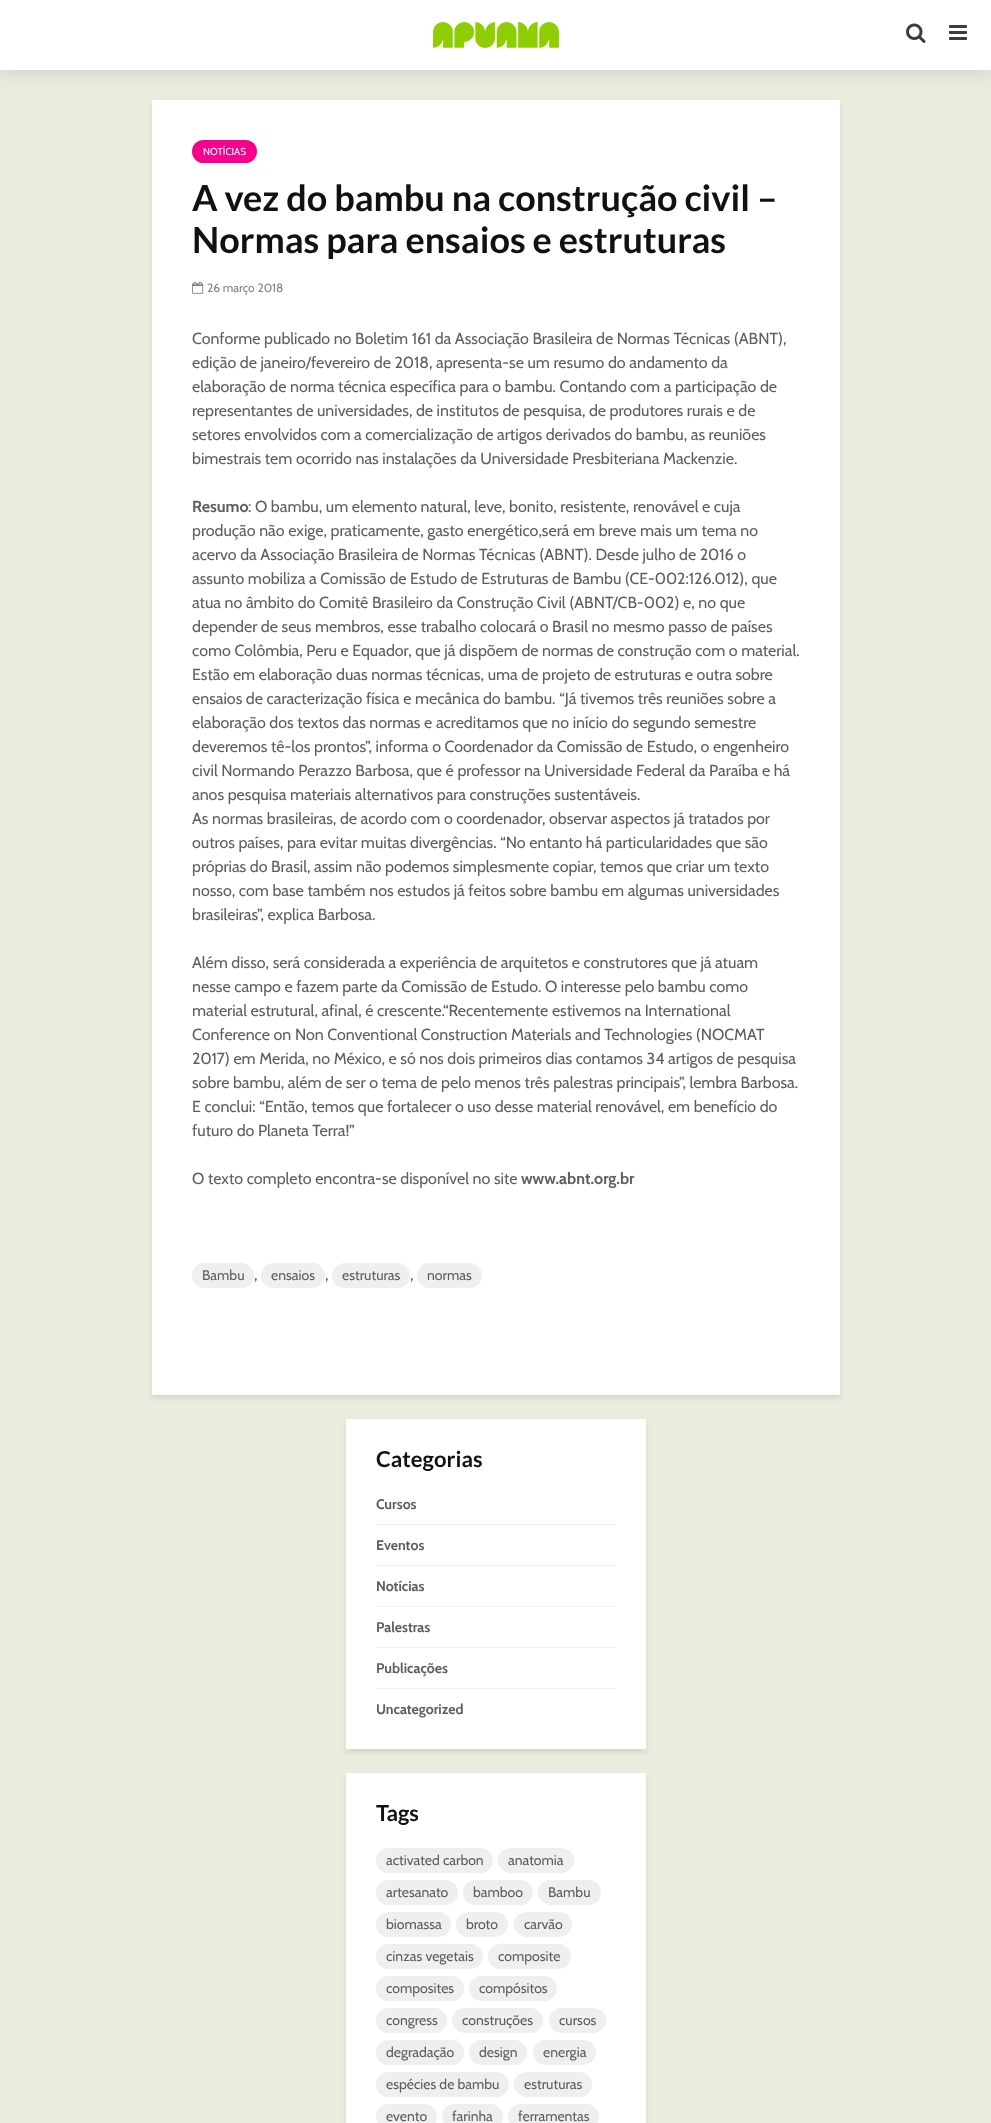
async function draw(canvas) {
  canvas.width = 991
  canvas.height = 2123
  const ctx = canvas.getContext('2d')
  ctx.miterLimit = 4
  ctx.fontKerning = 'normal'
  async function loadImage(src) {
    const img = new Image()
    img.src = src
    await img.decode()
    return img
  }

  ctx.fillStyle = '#eaedde'
  ctx.fillRect(0, 0, 991, 2123)
  ctx.fillStyle = '#0001011a'
  ctx.filter = 'blur(2.5px)'
  ctx.beginPath()
  ctx.rect(152, 103, 688, 1295)
  ctx.fill()
  ctx.filter = 'none'
  ctx.fillStyle = '#fff'
  ctx.fillRect(152, 100, 688, 1295)
  ctx.fillStyle = '#00000026'
  ctx.filter = 'blur(10px)'
  ctx.beginPath()
  ctx.rect(0, 0, 991, 70)
  ctx.fill()
  ctx.filter = 'none'
  ctx.fillStyle = '#fff'
  ctx.fillRect(0, 0, 991, 70)
  ctx.drawImage(await loadImage('image0.png'), 433, 22, 126, 26)
  ctx.drawImage(await loadImage('image1.png'), 906, 23, 20, 20)
  ctx.drawImage(await loadImage('image2.png'), 949, 25, 18, 15)
  ctx.fillStyle = '#f7008c'
  ctx.beginPath()
  ctx.roundRect(192, 140, 65, 23, 11.5)
  ctx.fill()
  ctx.font = '10px Cabin'
  ctx.fillStyle = '#fff'
  ctx.fillText('NOTÍCIAS', 203, 155)
  ctx.font = 'bold 36px Lato'
  ctx.fillStyle = '#111'
  ctx.fillText('A vez do bambu na construção civil –', 192, 211)
  ctx.fillText('Normas para ensaios e estruturas', 192, 253)
  ctx.drawImage(await loadImage('image3.png'), 192, 281, 12, 13)
  ctx.font = '12px Cabin'
  ctx.fillStyle = '#818181'
  ctx.fillText('26 março 2018', 207, 292)
  ctx.font = '16px Cabin'
  ctx.fillStyle = '#5e5e5e'
  ctx.fillText('Conforme publicado no Boletim 161 da Associação Brasileira de Normas Técnicas (ABNT),', 192, 344)
  ctx.fillText('edição de janeiro/fevereiro de 2018, apresenta-se um resumo do andamento da', 192, 368)
  ctx.fillText('elaboração de norma técnica específica para o bambu. Contando com a participação de', 192, 392)
  ctx.fillText('representantes de universidades, de institutos de pesquisa, de produtores rurais e de', 192, 416)
  ctx.fillText('setores envolvidos com a comercialização de artigos derivados do bambu, as reuniões', 192, 440)
  ctx.fillText('bimestrais tem ocorrido nas instalações da Universidade Presbiteriana Mackenzie.', 192, 464)
  ctx.font = 'bold 16px Cabin'
  ctx.fillText('Resumo', 192, 512)
  ctx.font = '16px Cabin'
  ctx.fillText(': O bambu, um elemento natural, leve, bonito, resistente, renovável e cuja', 248, 512)
  ctx.fillText('produção não exige, praticamente, gasto energético,será em breve mais um tema no', 192, 536)
  ctx.fillText('acervo da Associação Brasileira de Normas Técnicas (ABNT). Desde julho de 2016 o', 192, 560)
  ctx.fillText('assunto mobiliza a Comissão de Estudo de Estruturas de Bambu (CE-002:126.012), que', 192, 584)
  ctx.fillText('atua no âmbito do Comitê Brasileiro da Construção Civil (ABNT/CB-002) e, no que', 192, 608)
  ctx.fillText('depender de seus membros, esse trabalho colocará o Brasil no mesmo passo de países', 192, 632)
  ctx.fillText('como Colômbia, Peru e Equador, que já dispõem de normas de construção com o material.', 192, 656)
  ctx.fillText('Estão em elaboração duas normas técnicas, uma de projeto de estruturas e outra sobre', 192, 680)
  ctx.fillText('ensaios de caracterização física e mecânica do bambu. “Já tivemos três reuniões sobre a', 192, 704)
  ctx.fillText('elaboração dos textos das normas e acreditamos que no início do segundo semestre', 192, 728)
  ctx.fillText('deveremos tê-los prontos”, informa o Coordenador da Comissão de Estudo, o engenheiro', 192, 752)
  ctx.fillText('civil Normando Perazzo Barbosa, que é professor na Universidade Federal da Paraíba e há', 192, 776)
  ctx.fillText('anos pesquisa materiais alternativos para construções sustentáveis.', 192, 800)
  ctx.fillText('As normas brasileiras, de acordo com o coordenador, observar aspectos já tratados por', 192, 824)
  ctx.fillText('outros países, para evitar muitas divergências. “No entanto há particularidades que são', 192, 848)
  ctx.fillText('próprias do Brasil, assim não podemos simplesmente copiar, temos que criar um texto', 192, 872)
  ctx.fillText('nosso, com base também nos estudos já feitos sobre bambu em algumas universidades', 192, 896)
  ctx.fillText('brasileiras”, explica Barbosa.', 192, 920)
  ctx.fillText('Além disso, será considerada a experiência de arquitetos e construtores que já atuam', 192, 968)
  ctx.fillText('nesse campo e fazem parte da Comissão de Estudo. O interesse pelo bambu como', 192, 992)
  ctx.fillText('material estrutural, afinal, é crescente.“Recentemente estivemos na International', 192, 1016)
  ctx.fillText('Conference on Non Conventional Construction Materials and Technologies (NOCMAT', 192, 1040)
  ctx.fillText('2017) em Merida, no México, e só nos dois primeiros dias contamos 34 artigos de pesquisa', 192, 1064)
  ctx.fillText('sobre bambu, além de ser o tema de pelo menos três palestras principais”, lembra Barbosa.', 192, 1088)
  ctx.fillText('E conclui: “Então, temos que fortalecer o uso desse material renovável, em benefício do', 192, 1112)
  ctx.fillText('futuro do Planeta Terra!”', 192, 1136)
  ctx.fillText('O texto completo encontra-se disponível no site', 192, 1184)
  ctx.font = 'bold 16px Cabin'
  ctx.fillText('www.abnt.org.br', 521, 1184)
  ctx.fillStyle = '#efefef'
  ctx.beginPath()
  ctx.roundRect(192, 1263, 62, 25, 12.5)
  ctx.fill()
  ctx.font = '14px Cabin'
  ctx.fillStyle = '#5e5e5e'
  ctx.fillText('Bambu', 202, 1280)
  ctx.font = '16px Cabin'
  ctx.fillText(',', 254, 1280)
  ctx.fillStyle = '#efefef'
  ctx.beginPath()
  ctx.roundRect(261, 1263, 64, 25, 12.5)
  ctx.fill()
  ctx.font = '14px Cabin'
  ctx.fillStyle = '#5e5e5e'
  ctx.fillText('ensaios', 271, 1280)
  ctx.font = '16px Cabin'
  ctx.fillText(',', 325, 1280)
  ctx.fillStyle = '#efefef'
  ctx.beginPath()
  ctx.roundRect(332, 1263, 78, 25, 12.5)
  ctx.fill()
  ctx.font = '14px Cabin'
  ctx.fillStyle = '#5e5e5e'
  ctx.fillText('estruturas', 342, 1280)
  ctx.font = '16px Cabin'
  ctx.fillText(',', 410, 1280)
  ctx.fillStyle = '#efefef'
  ctx.beginPath()
  ctx.roundRect(417, 1263, 65, 25, 12.5)
  ctx.fill()
  ctx.font = '14px Cabin'
  ctx.fillStyle = '#5e5e5e'
  ctx.fillText('normas', 427, 1280)
  ctx.fillStyle = '#0001011a'
  ctx.filter = 'blur(2.5px)'
  ctx.beginPath()
  ctx.rect(346, 1422, 300, 330)
  ctx.fill()
  ctx.filter = 'none'
  ctx.fillStyle = '#fff'
  ctx.fillRect(346, 1419, 300, 330)
  ctx.font = 'bold 22px Lato'
  ctx.fillStyle = '#111'
  ctx.fillText('Categorias', 376, 1467)
  ctx.fillStyle = '#efefef'
  ctx.fillRect(376, 1524, 240, 1)
  ctx.font = 'bold 14px Cabin'
  ctx.fillStyle = '#5e5e5e'
  ctx.fillText('Cursos', 376, 1509)
  ctx.fillStyle = '#efefef'
  ctx.fillRect(376, 1565, 240, 1)
  ctx.fillStyle = '#5e5e5e'
  ctx.fillText('Eventos', 376, 1550)
  ctx.fillStyle = '#efefef'
  ctx.fillRect(376, 1606, 240, 1)
  ctx.fillStyle = '#5e5e5e'
  ctx.fillText('Notícias', 376, 1591)
  ctx.fillStyle = '#efefef'
  ctx.fillRect(376, 1647, 240, 1)
  ctx.fillStyle = '#5e5e5e'
  ctx.fillText('Palestras', 376, 1632)
  ctx.fillStyle = '#efefef'
  ctx.fillRect(376, 1688, 240, 1)
  ctx.fillStyle = '#5e5e5e'
  ctx.fillText('Publicações', 376, 1673)
  ctx.fillText('Uncategorized', 376, 1714)
  ctx.fillStyle = '#0001011a'
  ctx.filter = 'blur(2.5px)'
  ctx.beginPath()
  ctx.rect(346, 1776, 300, 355)
  ctx.fill()
  ctx.filter = 'none'
  ctx.fillStyle = '#fff'
  ctx.fillRect(346, 1773, 300, 350)
  ctx.font = 'bold 22px Lato'
  ctx.fillStyle = '#111'
  ctx.fillText('Tags', 376, 1821)
  ctx.fillStyle = '#efefef'
  ctx.beginPath()
  ctx.roundRect(376, 1848, 117, 25, 12.5)
  ctx.fill()
  ctx.font = '14px Cabin'
  ctx.fillStyle = '#5e5e5e'
  ctx.fillText('activated carbon', 386, 1865)
  ctx.fillStyle = '#efefef'
  ctx.beginPath()
  ctx.roundRect(498, 1848, 76, 25, 12.5)
  ctx.fill()
  ctx.fillStyle = '#5e5e5e'
  ctx.fillText('anatomia', 508, 1865)
  ctx.fillStyle = '#efefef'
  ctx.beginPath()
  ctx.roundRect(376, 1880, 82, 25, 12.5)
  ctx.fill()
  ctx.fillStyle = '#5e5e5e'
  ctx.fillText('artesanato', 386, 1897)
  ctx.fillStyle = '#efefef'
  ctx.beginPath()
  ctx.roundRect(463, 1880, 70, 25, 12.5)
  ctx.fill()
  ctx.fillStyle = '#5e5e5e'
  ctx.fillText('bamboo', 473, 1897)
  ctx.fillStyle = '#efefef'
  ctx.beginPath()
  ctx.roundRect(538, 1880, 63, 25, 12.5)
  ctx.fill()
  ctx.fillStyle = '#5e5e5e'
  ctx.fillText('Bambu', 548, 1897)
  ctx.fillStyle = '#efefef'
  ctx.beginPath()
  ctx.roundRect(376, 1912, 75, 25, 12.5)
  ctx.fill()
  ctx.fillStyle = '#5e5e5e'
  ctx.fillText('biomassa', 386, 1929)
  ctx.fillStyle = '#efefef'
  ctx.beginPath()
  ctx.roundRect(456, 1912, 52, 25, 12.5)
  ctx.fill()
  ctx.fillStyle = '#5e5e5e'
  ctx.fillText('broto', 466, 1929)
  ctx.fillStyle = '#efefef'
  ctx.beginPath()
  ctx.roundRect(514, 1912, 58, 25, 12.5)
  ctx.fill()
  ctx.fillStyle = '#5e5e5e'
  ctx.fillText('carvão', 524, 1929)
  ctx.fillStyle = '#efefef'
  ctx.beginPath()
  ctx.roundRect(376, 1944, 107, 25, 12.5)
  ctx.fill()
  ctx.fillStyle = '#5e5e5e'
  ctx.fillText('cinzas vegetais', 386, 1961)
  ctx.fillStyle = '#efefef'
  ctx.beginPath()
  ctx.roundRect(488, 1944, 83, 25, 12.5)
  ctx.fill()
  ctx.fillStyle = '#5e5e5e'
  ctx.fillText('composite', 498, 1961)
  ctx.fillStyle = '#efefef'
  ctx.beginPath()
  ctx.roundRect(376, 1976, 88, 25, 12.5)
  ctx.fill()
  ctx.fillStyle = '#5e5e5e'
  ctx.fillText('composites', 386, 1993)
  ctx.fillStyle = '#efefef'
  ctx.beginPath()
  ctx.roundRect(469, 1976, 88, 25, 12.5)
  ctx.fill()
  ctx.fillStyle = '#5e5e5e'
  ctx.fillText('compósitos', 479, 1993)
  ctx.fillStyle = '#efefef'
  ctx.beginPath()
  ctx.roundRect(376, 2008, 71, 25, 12.5)
  ctx.fill()
  ctx.fillStyle = '#5e5e5e'
  ctx.fillText('congress', 386, 2025)
  ctx.fillStyle = '#efefef'
  ctx.beginPath()
  ctx.roundRect(452, 2008, 91, 25, 12.5)
  ctx.fill()
  ctx.fillStyle = '#5e5e5e'
  ctx.fillText('construções', 462, 2025)
  ctx.fillStyle = '#efefef'
  ctx.beginPath()
  ctx.roundRect(549, 2008, 57, 25, 12.5)
  ctx.fill()
  ctx.fillStyle = '#5e5e5e'
  ctx.fillText('cursos', 559, 2025)
  ctx.fillStyle = '#efefef'
  ctx.beginPath()
  ctx.roundRect(376, 2040, 88, 25, 12.5)
  ctx.fill()
  ctx.fillStyle = '#5e5e5e'
  ctx.fillText('degradação', 386, 2057)
  ctx.fillStyle = '#efefef'
  ctx.beginPath()
  ctx.roundRect(469, 2040, 58, 25, 12.5)
  ctx.fill()
  ctx.fillStyle = '#5e5e5e'
  ctx.fillText('design', 479, 2057)
  ctx.fillStyle = '#efefef'
  ctx.beginPath()
  ctx.roundRect(533, 2040, 63, 25, 12.5)
  ctx.fill()
  ctx.fillStyle = '#5e5e5e'
  ctx.fillText('energia', 543, 2057)
  ctx.fillStyle = '#efefef'
  ctx.beginPath()
  ctx.roundRect(376, 2072, 133, 25, 12.5)
  ctx.fill()
  ctx.fillStyle = '#5e5e5e'
  ctx.fillText('espécies de bambu', 386, 2089)
  ctx.fillStyle = '#efefef'
  ctx.beginPath()
  ctx.roundRect(514, 2072, 78, 25, 12.5)
  ctx.fill()
  ctx.fillStyle = '#5e5e5e'
  ctx.fillText('estruturas', 524, 2089)
  ctx.fillStyle = '#efefef'
  ctx.beginPath()
  ctx.roundRect(376, 2104, 61, 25, 12.5)
  ctx.fill()
  ctx.fillStyle = '#5e5e5e'
  ctx.fillText('evento', 386, 2121)
  ctx.fillStyle = '#efefef'
  ctx.beginPath()
  ctx.roundRect(442, 2104, 61, 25, 12.5)
  ctx.fill()
  ctx.fillStyle = '#5e5e5e'
  ctx.fillText('farinha', 452, 2121)
  ctx.fillStyle = '#efefef'
  ctx.beginPath()
  ctx.roundRect(508, 2104, 91, 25, 12.5)
  ctx.fill()
  ctx.fillStyle = '#5e5e5e'
  ctx.fillText('ferramentas', 518, 2121)
}

draw(document.querySelector('canvas'))
